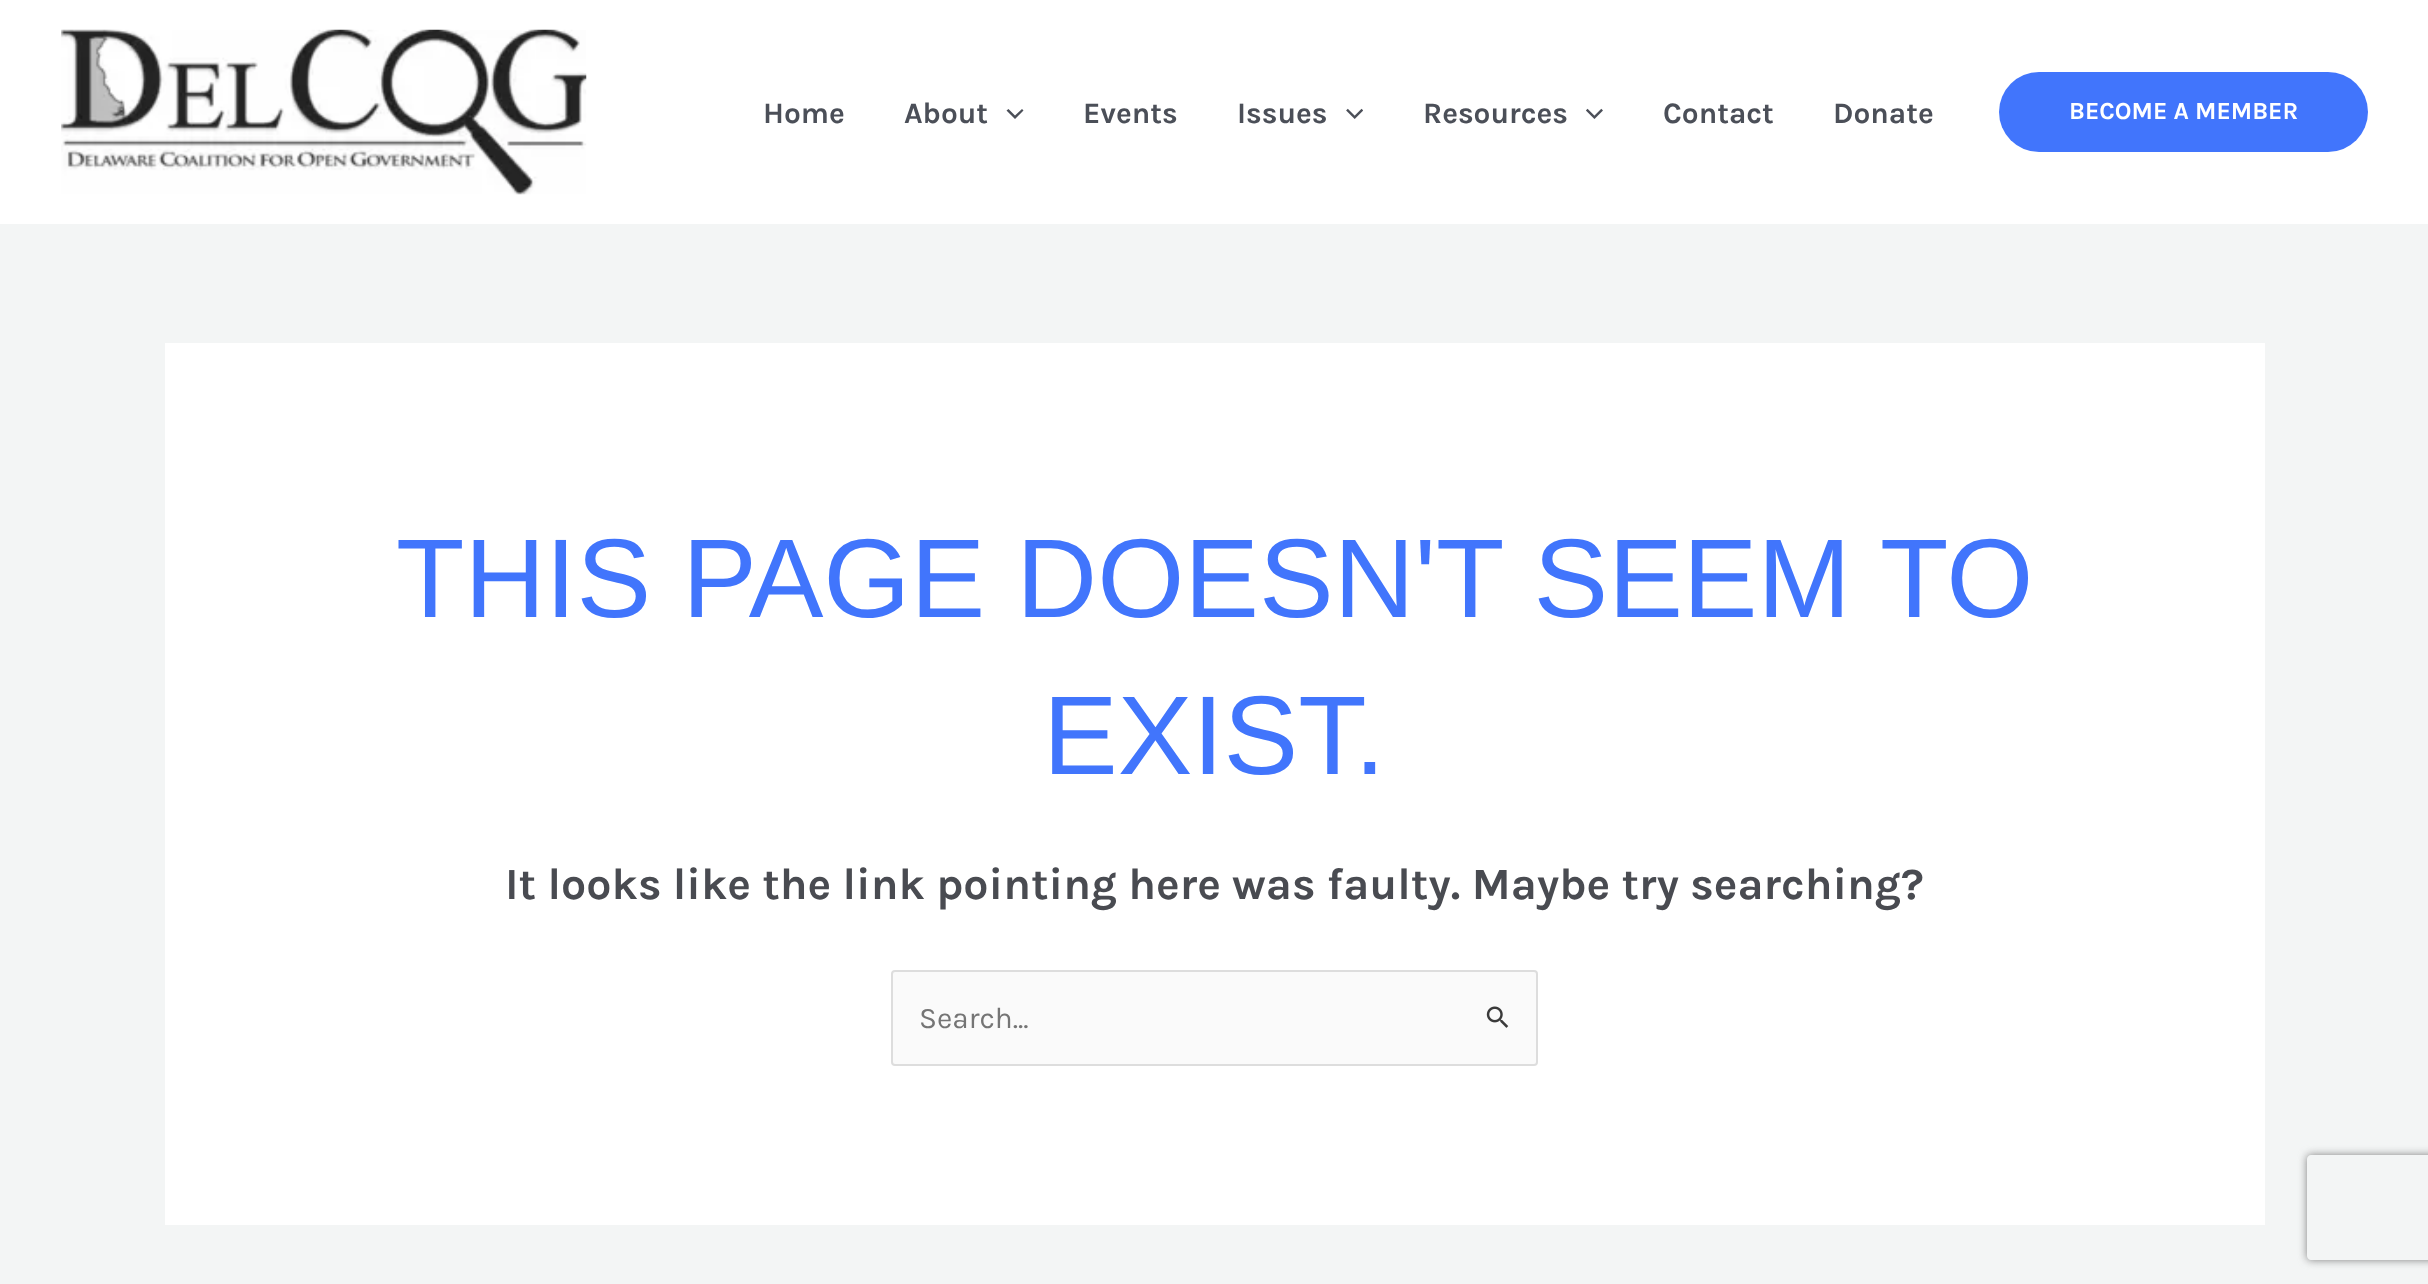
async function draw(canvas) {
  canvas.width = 2428
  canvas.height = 1284
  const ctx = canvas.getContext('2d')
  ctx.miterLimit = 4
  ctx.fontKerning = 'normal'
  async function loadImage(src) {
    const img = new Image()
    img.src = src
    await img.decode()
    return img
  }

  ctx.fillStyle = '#f3f5f5'
  ctx.fillRect(0, 0, 2428, 1284)
  ctx.fillStyle = '#fff'
  ctx.fillRect(0, 0, 2428, 224)
  ctx.drawImage(await loadImage('image0.png'), 61, 29, 526, 166)
  ctx.font = 'bold 29.75px Karla'
  ctx.fillStyle = '#4b4f58'
  ctx.fillText('Home', 763, 123)
  ctx.fillText('About', 904, 123)
  ctx.beginPath()
  ctx.moveTo(1006.5, 110.5)
  ctx.lineTo(1015, 119)
  ctx.lineTo(1023.5, 110.5)
  ctx.lineTo(1022, 109)
  ctx.lineTo(1015, 115.5)
  ctx.lineTo(1008.5, 109)
  ctx.closePath()
  ctx.fill()
  ctx.fillText('Events', 1083, 123)
  ctx.fillText('Issues', 1237, 123)
  ctx.drawImage(await loadImage('image1.png'), 1346, 108, 17, 11)
  ctx.fillText('Resources', 1423, 123)
  ctx.drawImage(await loadImage('image2.png'), 1586, 108, 17, 11)
  ctx.fillText('Contact', 1663, 123)
  ctx.fillText('Donate', 1833, 123)
  ctx.fillStyle = '#4175fc'
  ctx.beginPath()
  ctx.roundRect(1999, 72, 369, 80, 40)
  ctx.fill()
  ctx.font = 'bold 24.5px Karla'
  ctx.fillStyle = '#fff'
  ctx.fillText('BECOME A MEMBER', 2069, 119)
  ctx.fillRect(165, 343, 2100, 882)
  ctx.font = '112px Liberation Sans'
  ctx.fillStyle = '#4175fc'
  ctx.fillText('THIS PAGE DOESN\'T SEEM TO', 396, 617)
  ctx.fillText('EXIST.', 1043, 774)
  ctx.font = 'bold 44.6px Karla'
  ctx.fillStyle = '#494b51'
  ctx.fillText('It looks like the link pointing here was faulty. Maybe try searching?', 505, 899)
  ctx.fillStyle = '#fafafa'
  ctx.beginPath()
  ctx.roundRect(892, 971, 645, 94, 3)
  ctx.fill()
  ctx.strokeStyle = '#ddd'
  ctx.lineWidth = 2
  ctx.stroke()
  ctx.font = '29.75px Karla'
  ctx.fillStyle = '#757575'
  ctx.fillText('Search...', 919, 1028)
  ctx.drawImage(await loadImage('image3.png'), 1486, 1006, 23, 22)
  ctx.save()
  ctx.beginPath()
  ctx.moveTo(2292, 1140)
  ctx.lineTo(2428, 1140)
  ctx.lineTo(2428, 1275)
  ctx.lineTo(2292, 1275)
  ctx.closePath()
  ctx.moveTo(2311, 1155)
  ctx.lineTo(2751, 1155)
  ctx.bezierCurveTo(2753, 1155, 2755, 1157, 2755, 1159)
  ctx.lineTo(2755, 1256)
  ctx.bezierCurveTo(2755, 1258, 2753, 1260, 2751, 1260)
  ctx.lineTo(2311, 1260)
  ctx.bezierCurveTo(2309, 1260, 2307, 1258, 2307, 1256)
  ctx.lineTo(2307, 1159)
  ctx.bezierCurveTo(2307, 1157, 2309, 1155, 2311, 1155)
  ctx.closePath()
  ctx.clip('evenodd')
  ctx.fillStyle = '#808080'
  ctx.filter = 'blur(4.5px)'
  ctx.beginPath()
  ctx.roundRect(2307, 1155, 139, 105, 4)
  ctx.fill()
  ctx.filter = 'none'
  ctx.restore()
}

draw(document.querySelector('canvas'))
